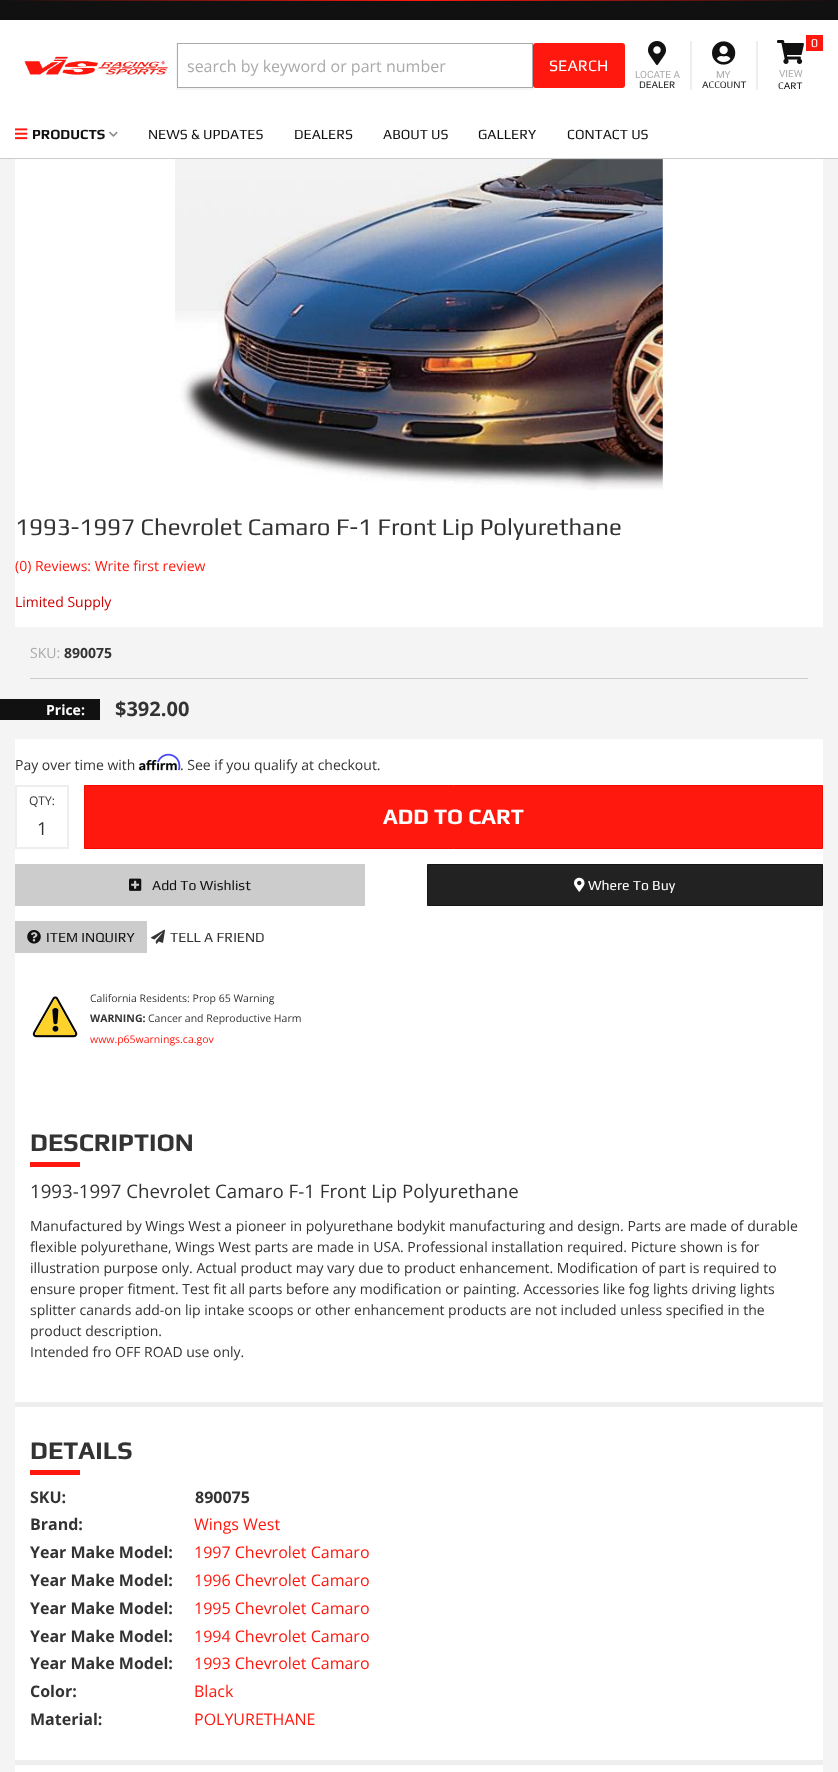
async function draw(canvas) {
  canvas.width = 838
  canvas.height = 1772
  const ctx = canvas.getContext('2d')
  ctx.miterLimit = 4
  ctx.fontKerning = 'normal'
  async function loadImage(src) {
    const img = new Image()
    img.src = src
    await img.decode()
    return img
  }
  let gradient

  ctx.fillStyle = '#fff'
  ctx.fillRect(0, 0, 838, 1772)
  ctx.fillStyle = '#ccc'
  ctx.fillRect(0, 158, 838, 1)
  ctx.fillStyle = '#111'
  ctx.fillRect(0, 1, 838, 19)
  gradient = ctx.createLinearGradient(0, 0.5, 838, 0.5)
  gradient.addColorStop(0, '#111')
  gradient.addColorStop(0.5, '#ff180e')
  gradient.addColorStop(1, '#111')
  ctx.fillStyle = gradient
  ctx.fillRect(0, 0, 838, 1)
  ctx.drawImage(await loadImage('image0.png'), 24, 56, 144, 19)
  ctx.fillStyle = '#ff180e'
  ctx.beginPath()
  ctx.roundRect(533, 43, 92, 45, 3)
  ctx.fill()
  ctx.fillStyle = '#0000000a'
  ctx.beginPath()
  ctx.moveTo(176, 43)
  ctx.lineTo(176, 90)
  ctx.lineTo(534, 90)
  ctx.lineTo(534, 43)
  ctx.lineTo(533, 43)
  ctx.lineTo(533, 88)
  ctx.lineTo(177, 88)
  ctx.lineTo(177, 43)
  ctx.closePath()
  ctx.fill()
  ctx.strokeStyle = '#aaa'
  ctx.strokeRect(177.5, 43.5, 355, 44)
  ctx.font = '16px Open Sans'
  ctx.fillStyle = '#aaa'
  ctx.fillText('search by keyword or part number', 187, 72)
  ctx.font = '16px Play'
  ctx.fillStyle = '#fff'
  ctx.fillText('SEARCH', 549, 71)
  ctx.drawImage(await loadImage('image1.png'), 777, 40, 27, 24)
  ctx.fillStyle = '#ff180e'
  ctx.fillRect(806, 35, 17, 16)
  ctx.font = '12px Play'
  ctx.fillStyle = '#fff'
  ctx.fillText('0', 811, 47)
  ctx.font = '10px Roboto'
  ctx.fillStyle = '#aaa'
  ctx.fillText('VIEW', 779, 77)
  ctx.font = '10px Play'
  ctx.fillStyle = '#111'
  ctx.fillText('CART', 778, 89)
  ctx.fillStyle = '#eee'
  ctx.fillRect(690, 41, 2, 49)
  ctx.drawImage(await loadImage('image2.png'), 648, 41, 18, 24)
  ctx.font = '10px Roboto'
  ctx.fillStyle = '#aaa'
  ctx.fillText('LOCATE A', 635, 78)
  ctx.font = '10px Play'
  ctx.fillStyle = '#222'
  ctx.fillText('DEALER', 639, 88)
  ctx.fillStyle = '#eee'
  ctx.fillRect(756, 41, 2, 49)
  ctx.drawImage(await loadImage('image3.png'), 712, 41, 24, 24)
  ctx.font = '10px Roboto'
  ctx.fillStyle = '#aaa'
  ctx.fillText('MY', 716, 78)
  ctx.font = '10px Play'
  ctx.fillStyle = '#222'
  ctx.fillText('ACCOUNT', 702, 88)
  ctx.drawImage(await loadImage('image4.png'), 15, 128, 13, 12)
  ctx.font = 'bold 14px Play'
  ctx.fillStyle = '#111'
  ctx.fillText('PRODUCTS', 32, 139)
  ctx.drawImage(await loadImage('image5.png'), 109, 131, 9, 6)
  ctx.font = '14px Play'
  ctx.fillText('NEWS & UPDATES', 148, 139)
  ctx.fillText('DEALERS', 294, 139)
  ctx.fillText('ABOUT US', 383, 139)
  ctx.fillText('GALLERY', 478, 139)
  ctx.fillText('CONTACT US', 567, 139)
  ctx.fillStyle = '#f4f4f4'
  ctx.fillRect(0, 159, 838, 1613)
  ctx.fillStyle = '#fff'
  ctx.fillRect(15, 159, 808, 1613)
  ctx.drawImage(await loadImage('image6.png'), 175, 159, 488, 331)
  ctx.font = '24px Play'
  ctx.fillStyle = '#333'
  ctx.fillText('1993-1997 Chevrolet Camaro F-1 Front Lip Polyurethane', 15, 535)
  ctx.font = '14px Open Sans'
  ctx.fillStyle = '#ff180e'
  ctx.fillText('(0) Reviews: Write first review', 15, 571)
  ctx.fillStyle = '#c00'
  ctx.fillText('Limited Supply', 15, 607)
  ctx.fillStyle = '#f4f4f4'
  ctx.fillRect(15, 627, 808, 112)
  ctx.fillStyle = '#ccc'
  ctx.fillRect(30, 678, 778, 1)
  ctx.fillStyle = '#aaa'
  ctx.fillText('SKU:', 30, 658)
  ctx.font = 'bold 14px Open Sans'
  ctx.fillStyle = '#333'
  ctx.fillText('890075', 64, 658)
  ctx.fillStyle = '#111'
  ctx.fillRect(0, 699, 100, 21)
  ctx.fillStyle = '#fff'
  ctx.fillText('Price:', 46, 715)
  ctx.font = 'bold 20px Open Sans'
  ctx.fillStyle = '#333'
  ctx.fillText('$392.00', 115, 716)
  ctx.font = '14px Open Sans'
  ctx.fillText('Pay over time with', 15, 770)
  ctx.drawImage(await loadImage('image8.png'), 139, 759, 38, 12)
  ctx.drawImage(await loadImage('image7.png'), 157, 753, 24, 18)
  ctx.fillText('. See if you qualify at checkout.', 180, 770)
  ctx.fillStyle = '#eee'
  ctx.fillRect(15, 785, 54, 2)
  ctx.fillRect(67, 785, 2, 64)
  ctx.fillRect(15, 785, 2, 26)
  ctx.font = '12px Open Sans'
  ctx.fillStyle = '#333'
  ctx.fillText('QTY:', 29, 805)
  ctx.fillStyle = '#ff180e'
  ctx.beginPath()
  ctx.rect(84.5, 785.5, 738, 63)
  ctx.fill()
  ctx.strokeStyle = '#f40a00'
  ctx.stroke()
  ctx.font = 'bold 22px Play'
  ctx.fillStyle = '#fff'
  ctx.fillText('ADD TO CART', 383, 824)
  ctx.fillStyle = '#eee'
  ctx.fillRect(15, 847, 54, 2)
  ctx.fillRect(15, 811, 2, 38)
  ctx.font = '18px Open Sans'
  ctx.fillStyle = '#333'
  ctx.fillText('1', 37, 835)
  ctx.fillStyle = '#ccc'
  ctx.fillRect(15, 864, 350, 42)
  ctx.drawImage(await loadImage('image9.png'), 129, 878, 13, 13)
  ctx.font = '14px Play'
  ctx.fillStyle = '#111'
  ctx.fillText('Add To Wishlist', 152, 890)
  ctx.fillStyle = '#222'
  ctx.beginPath()
  ctx.rect(427.5, 864.5, 395, 41)
  ctx.fill()
  ctx.strokeStyle = '#151515'
  ctx.stroke()
  ctx.drawImage(await loadImage('image10.png'), 574, 877, 11, 15)
  ctx.fillStyle = '#fff'
  ctx.fillText('Where To Buy', 588, 890)
  ctx.fillStyle = '#ccc'
  ctx.fillRect(15, 921, 132, 32)
  ctx.drawImage(await loadImage('image11.png'), 27, 930, 14, 14)
  ctx.fillStyle = '#111'
  ctx.fillText('ITEM INQUIRY', 46, 942)
  ctx.drawImage(await loadImage('image12.png'), 151, 929, 14, 15)
  ctx.fillStyle = '#333'
  ctx.fillText('TELL A FRIEND', 170, 942)
  ctx.drawImage(await loadImage('image13.png'), 32, 996, 46, 42)
  ctx.font = '10.5px Open Sans'
  ctx.fillText('California Residents: Prop 65 Warning', 90, 1002)
  ctx.font = 'bold 10.5px Open Sans'
  ctx.fillText('WARNING:', 90, 1022)
  ctx.font = '10.5px Open Sans'
  ctx.fillText('Cancer and Reproductive Harm', 148, 1022)
  ctx.fillStyle = '#ff180e'
  ctx.fillText('www.p65warnings.ca.gov', 90, 1043)
  ctx.fillStyle = '#eee'
  ctx.fillRect(15, 1402, 808, 5)
  ctx.font = 'bold 25.25px Play'
  ctx.fillStyle = '#333'
  ctx.fillText('DESCRIPTION', 30, 1151)
  ctx.fillStyle = '#ff180e'
  ctx.fillRect(30, 1162, 50, 5)
  ctx.font = '18.7px Open Sans'
  ctx.fillStyle = '#333'
  ctx.fillText('1993-1997 Chevrolet Camaro F-1 Front Lip Polyurethane', 30, 1198)
  ctx.font = '14px Open Sans'
  ctx.fillText('Manufactured by Wings West a pioneer in polyurethane bodykit manufacturing and design. Parts are made of durable', 30, 1231)
  ctx.fillText('flexible polyurethane, Wings West parts are made in USA. Professional installation required. Picture shown is for', 30, 1252)
  ctx.fillText('illustration purpose only. Actual product may vary due to product enhancement. Modification of part is required to', 30, 1273)
  ctx.fillText('ensure proper fitment. Test fit all parts before any modification or painting. Accessories like fog lights driving lights', 30, 1294)
  ctx.fillText('splitter canards add-on lip intake scoops or other enhancement products are not included unless specified in the', 30, 1315)
  ctx.fillText('product description.', 30, 1336)
  ctx.fillText('Intended fro OFF ROAD use only.', 30, 1357)
  ctx.font = 'bold 25.25px Play'
  ctx.fillText('DETAILS', 30, 1459)
  ctx.fillStyle = '#ff180e'
  ctx.fillRect(30, 1470, 50, 5)
  ctx.font = 'bold 16px Open Sans'
  ctx.fillStyle = '#333'
  ctx.fillText('SKU:', 30, 1503)
  ctx.fillText('890075', 195, 1503)
  ctx.fillText('Brand:', 30, 1530)
  ctx.font = '16px Open Sans'
  ctx.fillStyle = '#ff180e'
  ctx.fillText('Wings West', 194, 1530)
  ctx.font = 'bold 16px Open Sans'
  ctx.fillStyle = '#333'
  ctx.fillText('Year Make Model:', 30, 1558)
  ctx.font = '16px Open Sans'
  ctx.fillStyle = '#ff180e'
  ctx.fillText('1997 Chevrolet Camaro', 194, 1558)
  ctx.font = 'bold 16px Open Sans'
  ctx.fillStyle = '#333'
  ctx.fillText('Year Make Model:', 30, 1586)
  ctx.font = '16px Open Sans'
  ctx.fillStyle = '#ff180e'
  ctx.fillText('1996 Chevrolet Camaro', 194, 1586)
  ctx.font = 'bold 16px Open Sans'
  ctx.fillStyle = '#333'
  ctx.fillText('Year Make Model:', 30, 1614)
  ctx.font = '16px Open Sans'
  ctx.fillStyle = '#ff180e'
  ctx.fillText('1995 Chevrolet Camaro', 194, 1614)
  ctx.font = 'bold 16px Open Sans'
  ctx.fillStyle = '#333'
  ctx.fillText('Year Make Model:', 30, 1642)
  ctx.font = '16px Open Sans'
  ctx.fillStyle = '#ff180e'
  ctx.fillText('1994 Chevrolet Camaro', 194, 1642)
  ctx.font = 'bold 16px Open Sans'
  ctx.fillStyle = '#333'
  ctx.fillText('Year Make Model:', 30, 1669)
  ctx.font = '16px Open Sans'
  ctx.fillStyle = '#ff180e'
  ctx.fillText('1993 Chevrolet Camaro', 194, 1669)
  ctx.font = 'bold 16px Open Sans'
  ctx.fillStyle = '#333'
  ctx.fillText('Color:', 30, 1697)
  ctx.font = '16px Open Sans'
  ctx.fillStyle = '#ff180e'
  ctx.fillText('Black', 194, 1697)
  ctx.font = 'bold 16px Open Sans'
  ctx.fillStyle = '#333'
  ctx.fillText('Material:', 30, 1725)
  ctx.font = '16px Open Sans'
  ctx.fillStyle = '#ff180e'
  ctx.fillText('POLYURETHANE', 194, 1725)
  ctx.fillStyle = '#eee'
  ctx.fillRect(15, 1760, 808, 5)
}

draw(document.querySelector('canvas'))
